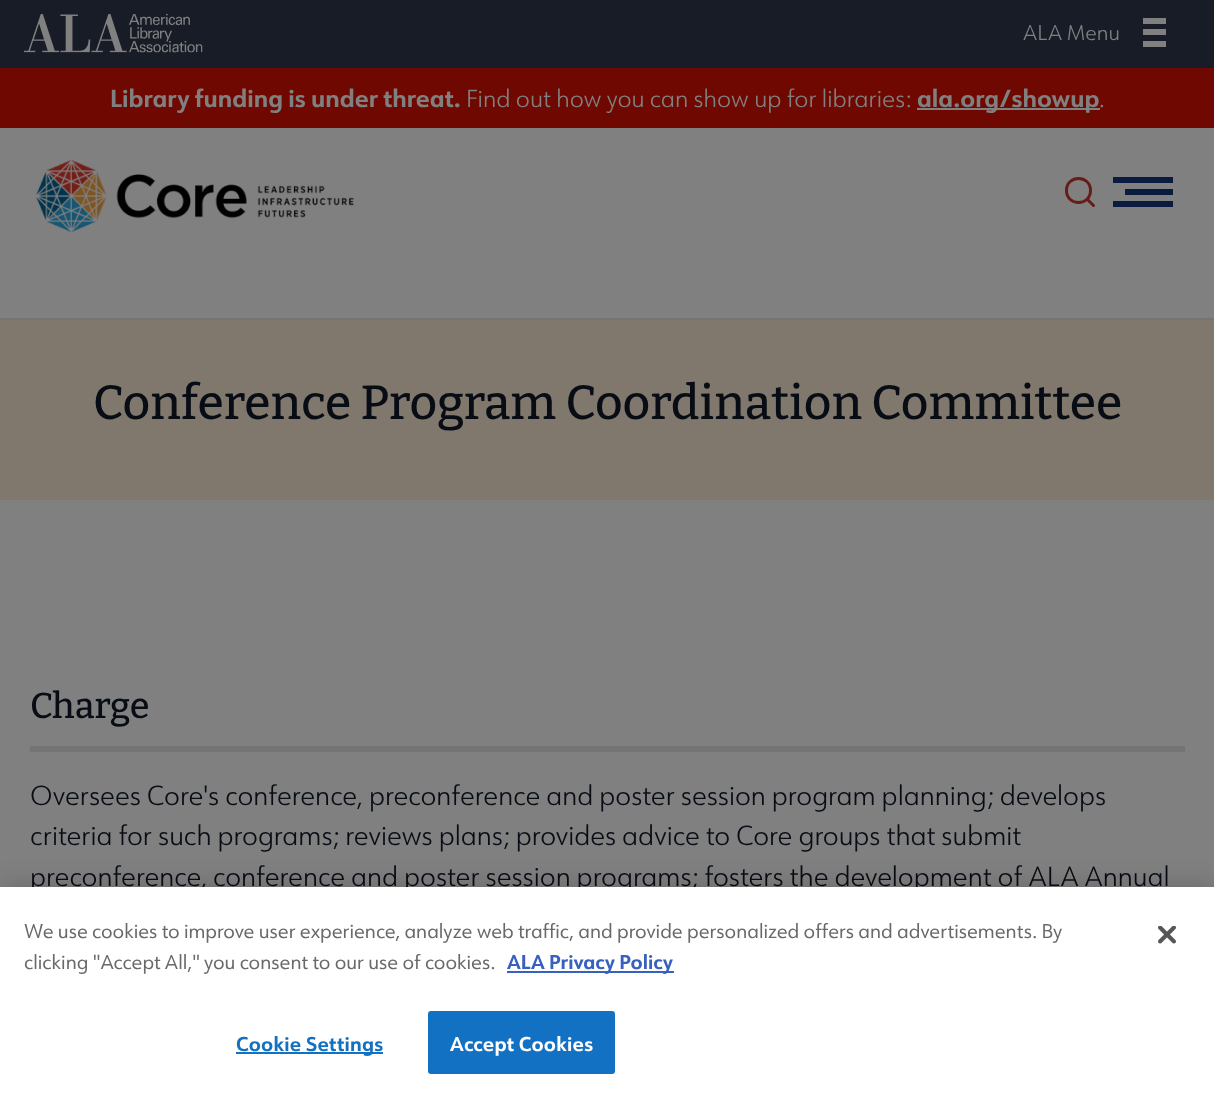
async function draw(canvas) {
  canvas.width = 1214
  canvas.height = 1098
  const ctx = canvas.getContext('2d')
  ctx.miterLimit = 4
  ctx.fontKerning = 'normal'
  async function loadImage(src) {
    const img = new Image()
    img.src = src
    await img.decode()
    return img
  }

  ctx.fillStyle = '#808080'
  ctx.fillRect(0, 0, 1214, 1098)
  ctx.fillStyle = '#737476'
  ctx.fillRect(0, 318, 1214, 2)
  ctx.fillStyle = '#181c27'
  ctx.fillRect(0, 0, 1214, 68)
  ctx.drawImage(await loadImage('image0.png'), 24, 14, 179, 39)
  ctx.font = '300 21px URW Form'
  ctx.fillStyle = '#808080'
  ctx.fillText('ALA Menu', 1023, 40)
  ctx.fillRect(1143, 18, 23, 6)
  ctx.fillRect(1143, 29, 23, 6)
  ctx.fillRect(1143, 41, 23, 6)
  ctx.fillStyle = '#6f0801'
  ctx.fillRect(0, 68, 1214, 60)
  ctx.font = 'bold 24px URW Form'
  ctx.fillStyle = '#808080'
  ctx.fillText('Library funding is under threat.', 110, 107)
  ctx.font = '300 24px URW Form'
  ctx.fillText('Find out how you can show up for libraries:', 466, 107)
  ctx.fillRect(917, 108, 183, 2)
  ctx.font = 'bold 24px URW Form'
  ctx.fillText('ala.org/showup', 917, 107)
  ctx.font = '300 24px URW Form'
  ctx.fillText('.', 1099, 107)
  ctx.drawImage(await loadImage('image1.png'), 36, 160, 318, 73)
  ctx.beginPath()
  ctx.moveTo(1093.5, 205.5)
  ctx.lineTo(1087, 199)
  ctx.moveTo(1090.5, 190.5)
  ctx.bezierCurveTo(1090.5, 206.5, 1066.5, 206.5, 1066.5, 190.5)
  ctx.bezierCurveTo(1066.5, 174.5, 1090.5, 174.5, 1090.5, 190.5)
  ctx.closePath()
  ctx.strokeStyle = '#671c15'
  ctx.lineWidth = 3
  ctx.lineCap = 'round'
  ctx.stroke()
  ctx.fillStyle = '#0b1a3f'
  ctx.fillRect(1113, 177, 60, 6)
  ctx.fillRect(1125, 189, 48, 6)
  ctx.fillRect(1113, 201, 60, 6)
  ctx.fillStyle = '#80776d'
  ctx.fillRect(0, 320, 1214, 180)
  ctx.font = '500 48px Bitter'
  ctx.fillStyle = '#080c14'
  ctx.fillText('Conference Program Coordination Committee', 93, 419)
  ctx.fillStyle = '#737476'
  ctx.fillRect(30, 746, 1155, 6)
  ctx.font = '500 36px Bitter'
  ctx.fillStyle = '#080c14'
  ctx.fillText('Charge', 30, 718)
  ctx.font = '300 27px URW Form'
  ctx.fillText('Oversees Core\'s conference, preconference and poster session program planning; develops', 30, 805)
  ctx.fillText('criteria for such programs; reviews plans; provides advice to Core groups that submit', 30, 845)
  ctx.fillText('preconference, conference and poster session programs; fosters the development of ALA Annual', 30, 886)
  ctx.fillStyle = '#00000033'
  ctx.filter = 'blur(13.5px)'
  ctx.beginPath()
  ctx.rect(0, 887, 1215, 211)
  ctx.fill()
  ctx.filter = 'none'
  ctx.fillStyle = '#fff'
  ctx.fillRect(0, 887, 1214, 211)
  ctx.font = '19.5px URW Form'
  ctx.fillStyle = '#696969'
  ctx.fillText('We use cookies to improve user experience, analyze web traffic, and provide personalized offers and advertisements. By', 24, 938)
  ctx.fillText('clicking "Accept All," you consent to our use of cookies.', 24, 969)
  ctx.fillStyle = '#3860be'
  ctx.fillRect(507, 971, 167, 2)
  ctx.font = 'bold 19.5px URW Form'
  ctx.fillText('ALA Privacy Policy', 507, 969)
  ctx.fillStyle = '#1371c3'
  ctx.fillRect(236, 1052, 147, 2)
  ctx.letterSpacing = '0.25px'
  ctx.fillText('Cookie Settings', 236, 1051)
  ctx.beginPath()
  ctx.roundRect(429, 1012, 185, 61, 2)
  ctx.fill()
  ctx.strokeStyle = '#1371c3'
  ctx.lineWidth = 2
  ctx.stroke()
  ctx.fillStyle = '#fff'
  ctx.fillText('Accept Cookies', 450, 1051)
  ctx.drawImage(await loadImage('image2.png'), 1158, 926, 18, 18)
}

draw(document.querySelector('canvas'))
